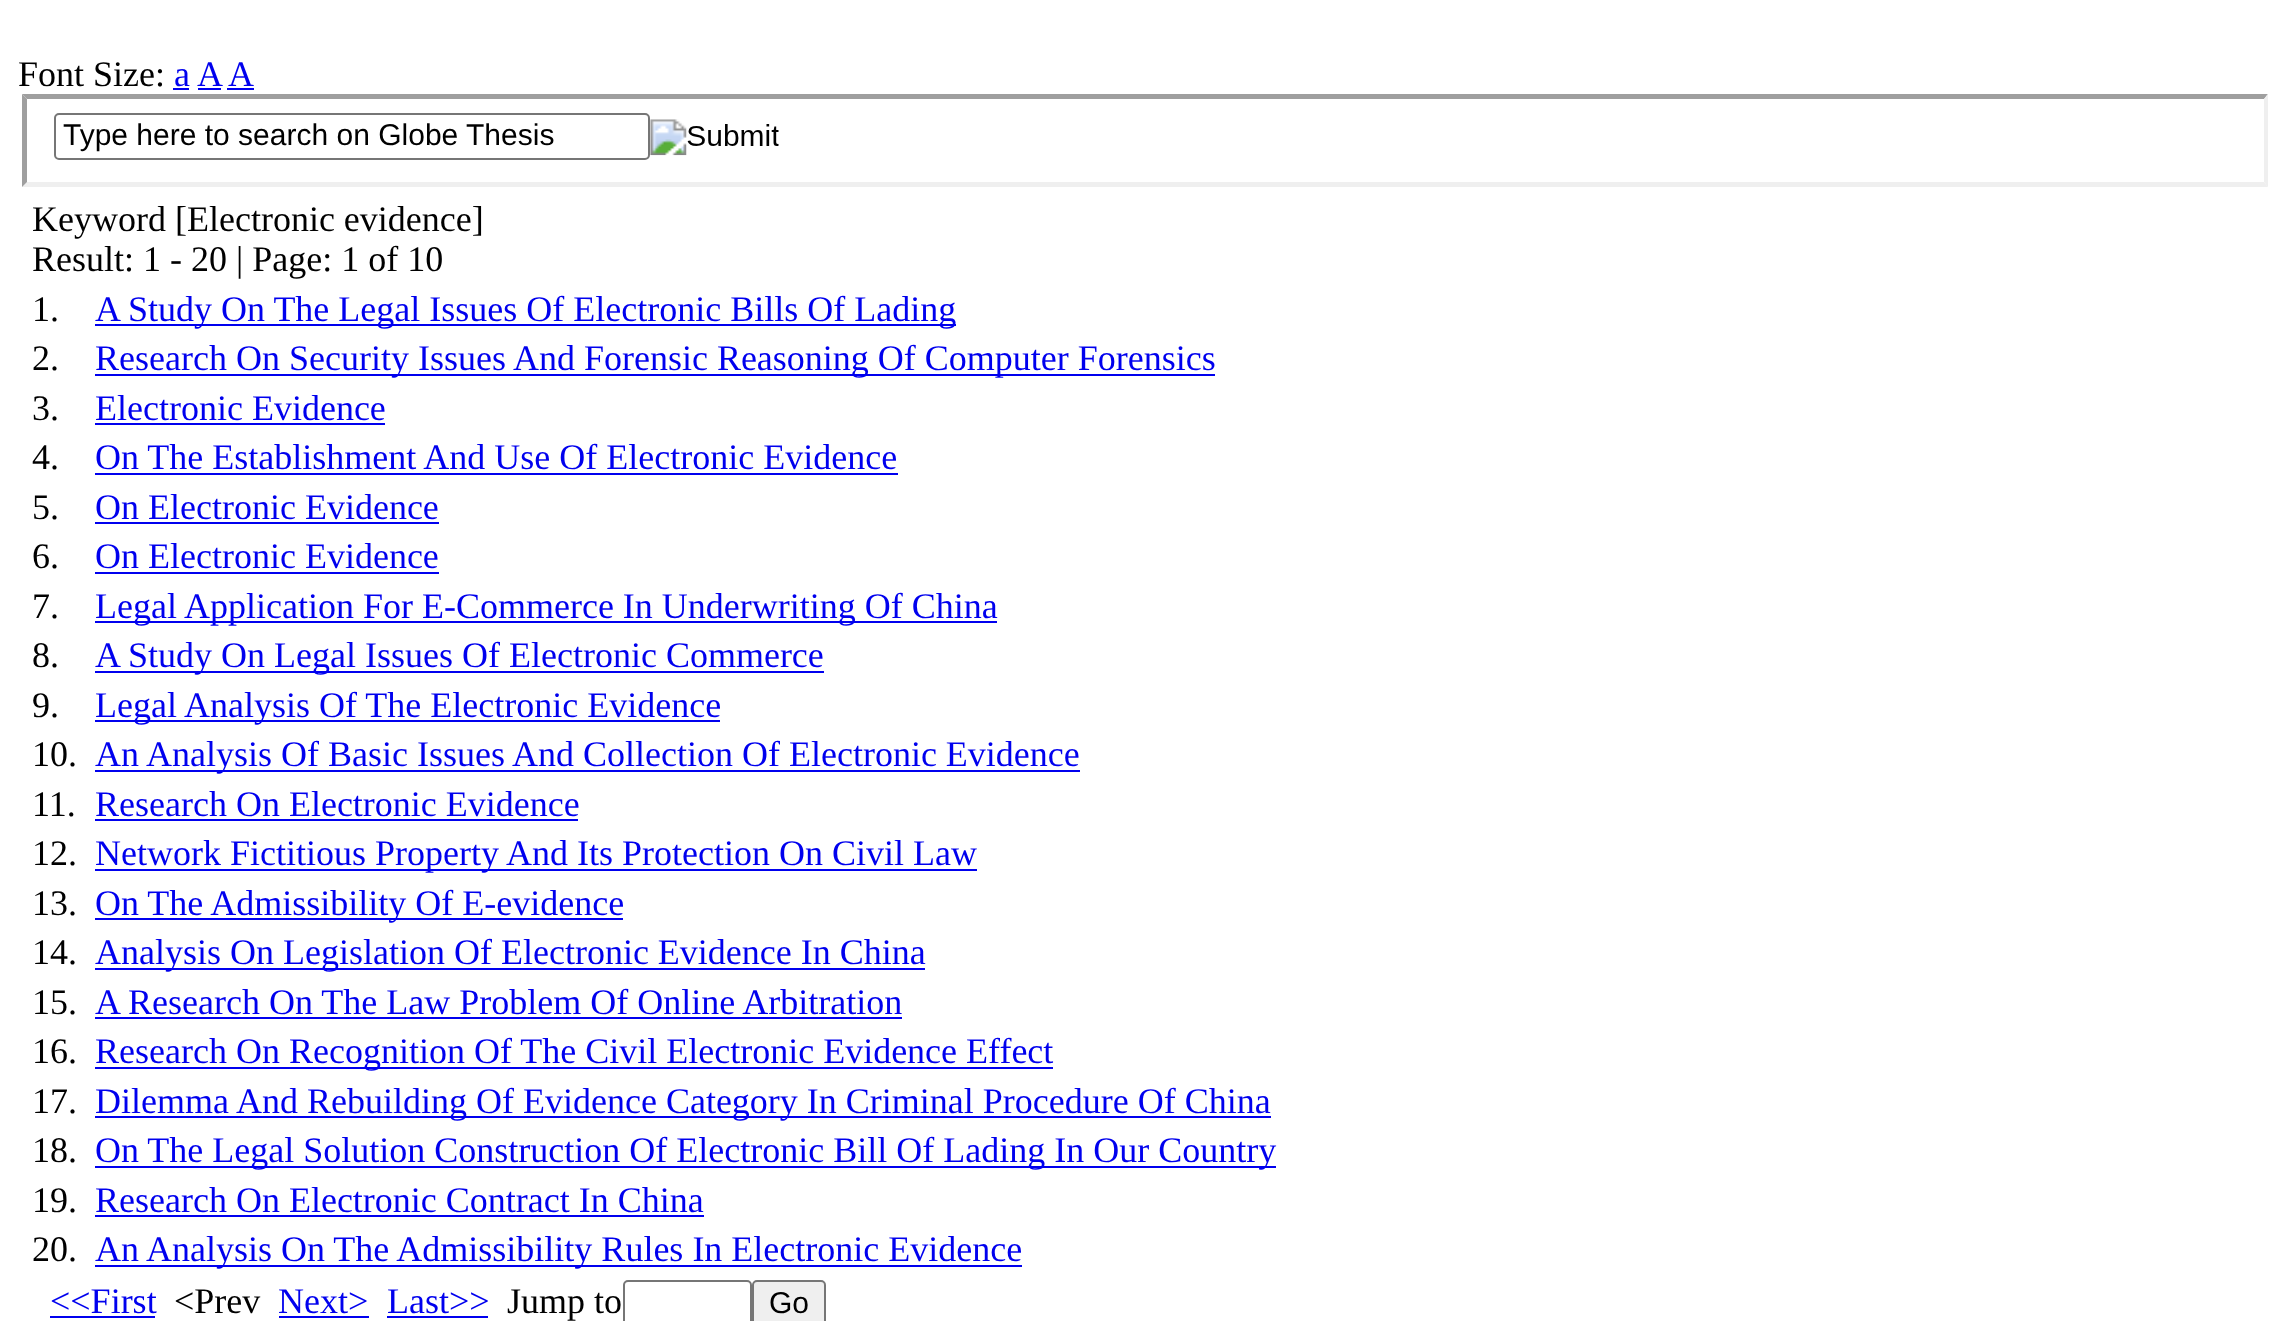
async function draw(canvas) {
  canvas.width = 2290
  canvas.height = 1321
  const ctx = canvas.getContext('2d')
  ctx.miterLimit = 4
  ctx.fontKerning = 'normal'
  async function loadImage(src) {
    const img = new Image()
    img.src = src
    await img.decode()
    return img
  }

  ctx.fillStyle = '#fff'
  ctx.fillRect(0, 0, 2290, 1321)
  ctx.font = '36px Liberation Serif'
  ctx.fillStyle = '#000'
  ctx.fillText('Font Size:', 18, 86)
  ctx.fillStyle = '#00e'
  ctx.fillText('a', 174, 86)
  ctx.fillRect(173, 88, 16, 2)
  ctx.fillText('A', 197, 86)
  ctx.fillRect(198, 88, 23, 2)
  ctx.fillText('A', 228, 86)
  ctx.fillRect(227, 88, 27, 2)
  ctx.fillStyle = '#9f9f9f'
  ctx.beginPath()
  ctx.moveTo(22, 94)
  ctx.lineTo(2268, 94)
  ctx.lineTo(2264, 99)
  ctx.lineTo(27, 99)
  ctx.closePath()
  ctx.fill()
  ctx.fillStyle = '#efefef'
  ctx.beginPath()
  ctx.moveTo(2268, 94)
  ctx.lineTo(2268, 187)
  ctx.lineTo(2264, 182)
  ctx.lineTo(2264, 99)
  ctx.closePath()
  ctx.fill()
  ctx.beginPath()
  ctx.moveTo(2268, 187)
  ctx.lineTo(22, 187)
  ctx.lineTo(27, 182)
  ctx.lineTo(2264, 182)
  ctx.closePath()
  ctx.fill()
  ctx.fillStyle = '#9f9f9f'
  ctx.beginPath()
  ctx.moveTo(22, 187)
  ctx.lineTo(22, 94)
  ctx.lineTo(27, 99)
  ctx.lineTo(27, 182)
  ctx.closePath()
  ctx.fill()
  ctx.beginPath()
  ctx.roundRect(55, 114, 594, 45, 4)
  ctx.strokeStyle = '#767676'
  ctx.lineWidth = 2
  ctx.stroke()
  ctx.font = '30px Liberation Sans'
  ctx.fillStyle = '#000'
  ctx.fillText('Type here to search on Globe Thesis', 63, 145)
  ctx.drawImage(await loadImage('image0.png'), 650, 119, 129, 37)
  ctx.font = '36px Liberation Serif'
  ctx.fillText('Keyword [Electronic evidence]', 32, 231)
  ctx.fillText('Result: 1 - 20 | Page: 1 of 10', 32, 271)
  ctx.fillText('1.', 32, 321)
  ctx.fillStyle = '#00e'
  ctx.fillRect(95, 324, 861, 2)
  ctx.fillText('A Study On The Legal Issues Of Electronic Bills Of Lading', 95, 321)
  ctx.fillStyle = '#000'
  ctx.fillText('2.', 32, 370)
  ctx.fillStyle = '#00e'
  ctx.fillRect(95, 374, 1120, 2)
  ctx.fillText('Research On Security Issues And Forensic Reasoning Of Computer Forensics', 95, 370)
  ctx.fillStyle = '#000'
  ctx.fillText('3.', 32, 420)
  ctx.fillStyle = '#00e'
  ctx.fillText('Electronic Evidence', 95, 420)
  ctx.fillRect(95, 423, 290, 2)
  ctx.fillStyle = '#000'
  ctx.fillText('4.', 32, 469)
  ctx.fillStyle = '#00e'
  ctx.fillText('On The Establishment And Use Of Electronic Evidence', 95, 469)
  ctx.fillRect(95, 473, 803, 2)
  ctx.fillStyle = '#000'
  ctx.fillText('5.', 32, 519)
  ctx.fillStyle = '#00e'
  ctx.fillText('On Electronic Evidence', 95, 519)
  ctx.fillRect(95, 522, 344, 2)
  ctx.fillStyle = '#000'
  ctx.fillText('6.', 32, 568)
  ctx.fillStyle = '#00e'
  ctx.fillText('On Electronic Evidence', 95, 568)
  ctx.fillRect(95, 572, 344, 2)
  ctx.fillStyle = '#000'
  ctx.fillText('7.', 32, 618)
  ctx.fillStyle = '#00e'
  ctx.fillRect(95, 621, 902, 2)
  ctx.fillText('Legal Application For E-Commerce In Underwriting Of China', 95, 618)
  ctx.fillStyle = '#000'
  ctx.fillText('8.', 32, 667)
  ctx.fillStyle = '#00e'
  ctx.fillRect(95, 671, 729, 2)
  ctx.fillText('A Study On Legal Issues Of Electronic Commerce', 95, 667)
  ctx.fillStyle = '#000'
  ctx.fillText('9.', 32, 717)
  ctx.fillStyle = '#00e'
  ctx.fillRect(95, 720, 625, 2)
  ctx.fillText('Legal Analysis Of The Electronic Evidence', 95, 717)
  ctx.fillStyle = '#000'
  ctx.fillText('10.', 32, 766)
  ctx.fillStyle = '#00e'
  ctx.fillRect(95, 770, 985, 2)
  ctx.fillText('An Analysis Of Basic Issues And Collection Of Electronic Evidence', 95, 766)
  ctx.fillStyle = '#000'
  ctx.fillText('11.', 32, 816)
  ctx.fillStyle = '#00e'
  ctx.fillText('Research On Electronic Evidence', 95, 816)
  ctx.fillRect(95, 819, 483, 2)
  ctx.fillStyle = '#000'
  ctx.fillText('12.', 32, 865)
  ctx.fillStyle = '#00e'
  ctx.fillRect(95, 869, 882, 2)
  ctx.fillText('Network Fictitious Property And Its Protection On Civil Law', 95, 865)
  ctx.fillStyle = '#000'
  ctx.fillText('13.', 32, 915)
  ctx.fillStyle = '#00e'
  ctx.fillRect(95, 918, 528, 2)
  ctx.fillText('On The Admissibility Of E-evidence', 95, 915)
  ctx.fillStyle = '#000'
  ctx.fillText('14.', 32, 964)
  ctx.fillStyle = '#00e'
  ctx.fillRect(95, 968, 830, 2)
  ctx.fillText('Analysis On Legislation Of Electronic Evidence In China', 95, 964)
  ctx.fillStyle = '#000'
  ctx.fillText('15.', 32, 1014)
  ctx.fillStyle = '#00e'
  ctx.fillText('A Research On The Law Problem Of Online Arbitration', 95, 1014)
  ctx.fillRect(95, 1017, 807, 2)
  ctx.fillStyle = '#000'
  ctx.fillText('16.', 32, 1063)
  ctx.fillStyle = '#00e'
  ctx.fillRect(95, 1067, 958, 2)
  ctx.fillText('Research On Recognition Of The Civil Electronic Evidence Effect', 95, 1063)
  ctx.fillStyle = '#000'
  ctx.fillText('17.', 32, 1113)
  ctx.fillStyle = '#00e'
  ctx.fillRect(95, 1116, 1176, 2)
  ctx.fillText('Dilemma And Rebuilding Of Evidence Category In Criminal Procedure Of China', 95, 1113)
  ctx.fillStyle = '#000'
  ctx.fillText('18.', 32, 1162)
  ctx.fillStyle = '#00e'
  ctx.fillRect(95, 1166, 1181, 2)
  ctx.fillText('On The Legal Solution Construction Of Electronic Bill Of Lading In Our Country', 95, 1162)
  ctx.fillStyle = '#000'
  ctx.fillText('19.', 32, 1212)
  ctx.fillStyle = '#00e'
  ctx.fillText('Research On Electronic Contract In China', 95, 1212)
  ctx.fillRect(95, 1215, 609, 2)
  ctx.fillStyle = '#000'
  ctx.fillText('20.', 32, 1261)
  ctx.fillStyle = '#00e'
  ctx.fillRect(95, 1265, 927, 2)
  ctx.fillText('An Analysis On The Admissibility Rules In Electronic Evidence', 95, 1261)
  ctx.fillText('<<First', 50, 1313)
  ctx.fillRect(50, 1316, 105, 2)
  ctx.fillStyle = '#000'
  ctx.fillText('<Prev', 174, 1313)
  ctx.fillStyle = '#00e'
  ctx.fillText('Next>', 278, 1313)
  ctx.fillRect(279, 1316, 90, 2)
  ctx.fillText('Last>>', 387, 1313)
  ctx.fillRect(387, 1316, 101, 2)
  ctx.fillStyle = '#000'
  ctx.fillText('Jump to', 507, 1313)
  ctx.beginPath()
  ctx.roundRect(624, 1281, 127, 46, 4)
  ctx.stroke()
  ctx.fillStyle = '#efefef'
  ctx.beginPath()
  ctx.roundRect(753, 1281, 72, 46, 4)
  ctx.fill()
  ctx.stroke()
  ctx.font = '30px Liberation Sans'
  ctx.fillStyle = '#000'
  ctx.fillText('Go', 769, 1313)
}

draw(document.querySelector('canvas'))
